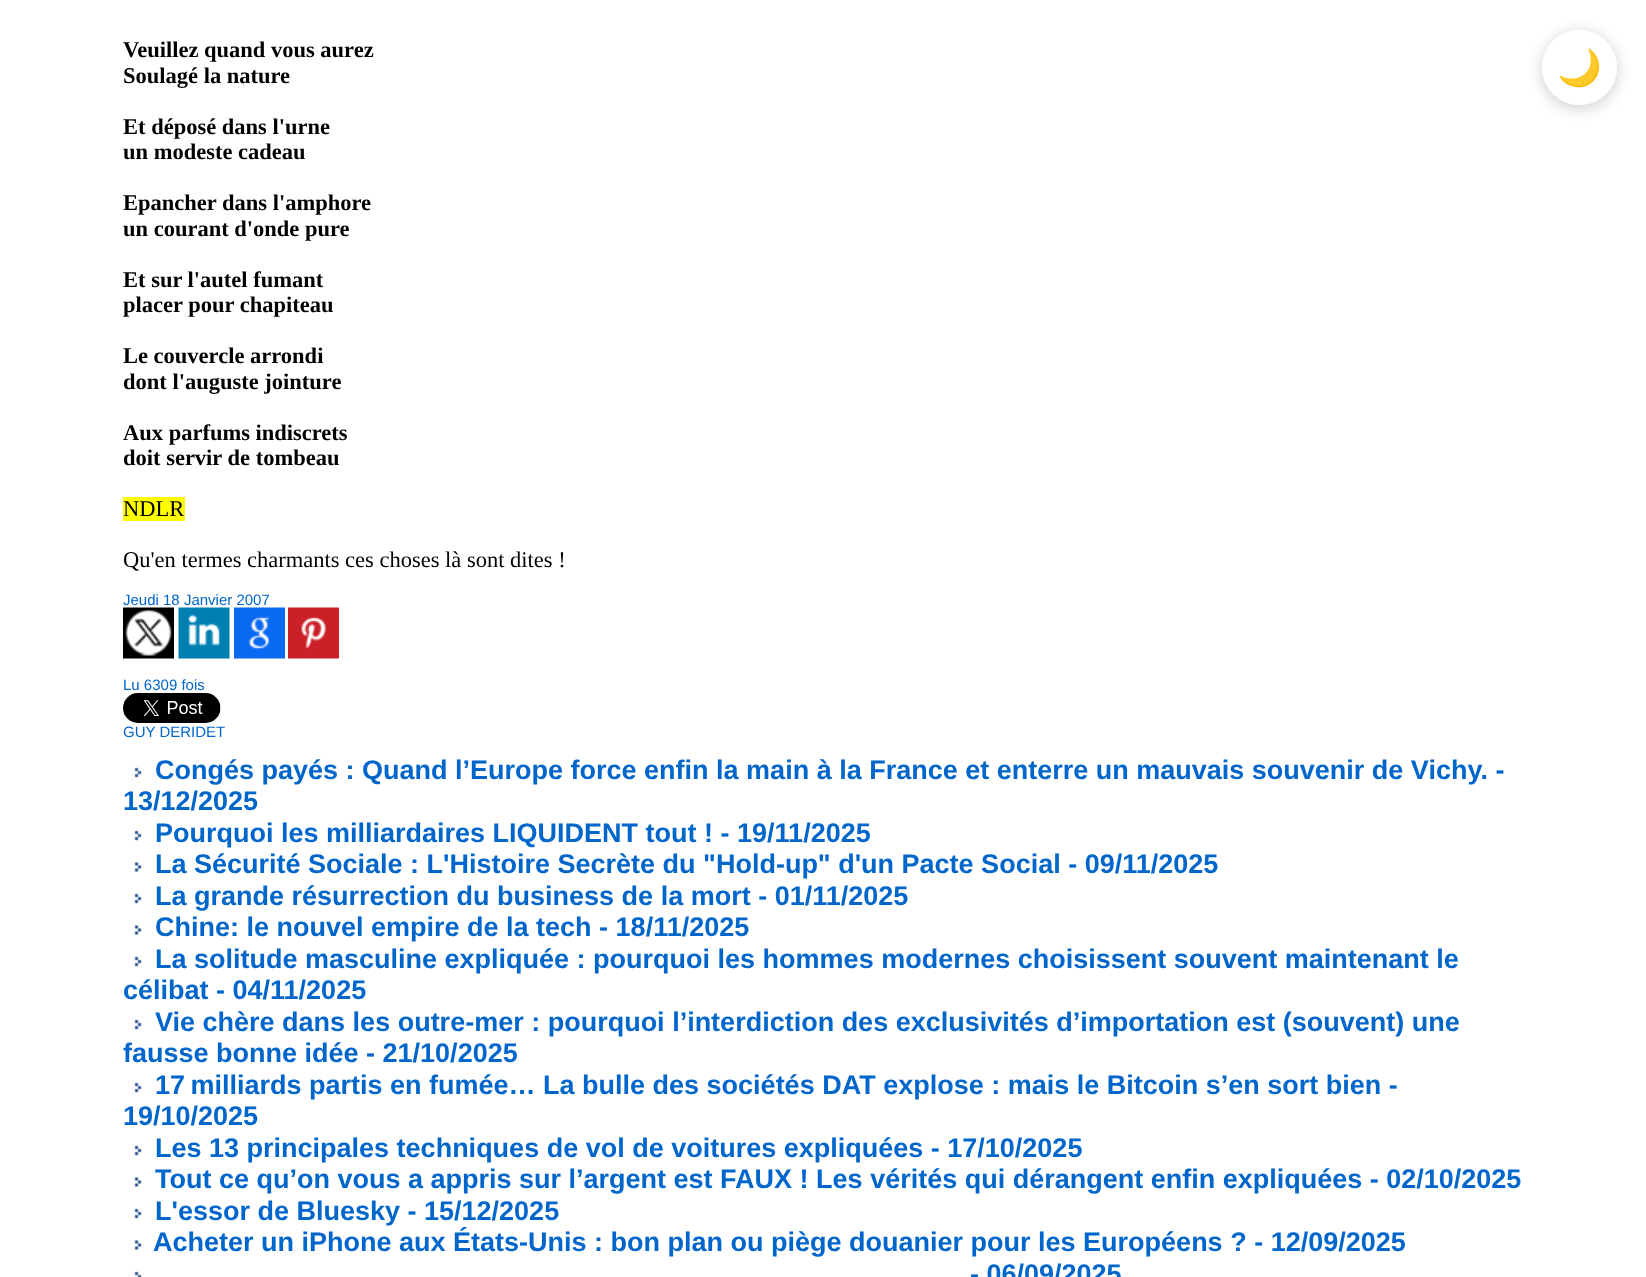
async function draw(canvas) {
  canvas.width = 1646
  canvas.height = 1277
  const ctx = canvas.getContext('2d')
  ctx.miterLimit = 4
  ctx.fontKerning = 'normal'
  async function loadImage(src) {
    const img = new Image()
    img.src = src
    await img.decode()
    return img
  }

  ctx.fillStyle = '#fff'
  ctx.fillRect(0, 0, 1646, 1277)
  ctx.font = 'bold 22.5px Liberation Serif'
  ctx.fillStyle = '#000'
  ctx.fillText('Veuillez quand vous aurez', 123, 57)
  ctx.fillText('Soulagé la nature', 123, 83)
  ctx.fillText('Et déposé dans l\'urne', 123, 134)
  ctx.fillText('un modeste cadeau', 123, 159)
  ctx.fillText('Epancher dans l\'amphore', 123, 210)
  ctx.fillText('un courant d\'onde pure', 123, 236)
  ctx.fillText('Et sur l\'autel fumant', 123, 287)
  ctx.fillText('placer pour chapiteau', 123, 312)
  ctx.fillText('Le couvercle arrondi', 123, 363)
  ctx.fillText('dont l\'auguste jointure', 123, 389)
  ctx.fillText('Aux parfums indiscrets', 123, 440)
  ctx.fillText('doit servir de tombeau', 123, 465)
  ctx.fillStyle = '#ff0'
  ctx.fillRect(123, 497, 62, 24)
  ctx.font = '22.5px Liberation Serif'
  ctx.fillStyle = '#000'
  ctx.fillText('NDLR', 123, 516)
  ctx.fillText('Qu\'en termes charmants ces choses là sont dites !', 123, 567)
  ctx.font = '15px Liberation Sans'
  ctx.fillStyle = '#06c'
  ctx.fillText('Jeudi 18 Janvier 2007', 123, 605)
  ctx.drawImage(await loadImage('image0.png'), 123, 607, 51, 52)
  ctx.drawImage(await loadImage('image1.png'), 178, 607, 52, 52)
  ctx.drawImage(await loadImage('image2.png'), 234, 607, 51, 52)
  ctx.drawImage(await loadImage('image3.png'), 288, 607, 51, 52)
  ctx.fillText('Lu 6309 fois', 123, 690)
  ctx.drawImage(await loadImage('image4.png'), 123, 693, 98, 30)
  ctx.fillText('GUY DERIDET', 123, 737)
  ctx.drawImage(await loadImage('image5.png'), 134, 767, 8, 11)
  ctx.font = 'bold 27px Liberation Sans'
  ctx.fillText('Congés payés : Quand l’Europe force enfin la main à la France et enterre un mauvais souvenir de Vichy. -', 155, 779)
  ctx.fillText('13/12/2025', 123, 810)
  ctx.drawImage(await loadImage('image5.png'), 134, 830, 8, 11)
  ctx.fillText('Pourquoi les milliardaires LIQUIDENT tout ! - 19/11/2025', 155, 842)
  ctx.drawImage(await loadImage('image6.png'), 134, 862, 8, 10)
  ctx.fillText('La Sécurité Sociale : L\'Histoire Secrète du "Hold-up" d\'un Pacte Social - 09/11/2025', 155, 873)
  ctx.drawImage(await loadImage('image5.png'), 134, 893, 8, 11)
  ctx.fillText('La grande résurrection du business de la mort - 01/11/2025', 155, 905)
  ctx.drawImage(await loadImage('image6.png'), 134, 925, 8, 10)
  ctx.fillText('Chine: le nouvel empire de la tech - 18/11/2025', 155, 936)
  ctx.drawImage(await loadImage('image5.png'), 134, 956, 8, 11)
  ctx.fillText('La solitude masculine expliquée : pourquoi les hommes modernes choisissent souvent maintenant le', 155, 968)
  ctx.fillText('célibat - 04/11/2025', 123, 999)
  ctx.drawImage(await loadImage('image5.png'), 134, 1019, 8, 11)
  ctx.fillText('Vie chère dans les outre-mer : pourquoi l’interdiction des exclusivités d’importation est (souvent) une', 155, 1031)
  ctx.fillText('fausse bonne idée - 21/10/2025', 123, 1062)
  ctx.drawImage(await loadImage('image5.png'), 134, 1082, 8, 11)
  ctx.fillText('17 milliards partis en fumée… La bulle des sociétés DAT explose : mais le Bitcoin s’en sort bien -', 155, 1094)
  ctx.fillText('19/10/2025', 123, 1125)
  ctx.drawImage(await loadImage('image5.png'), 134, 1145, 8, 11)
  ctx.fillText('Les 13 principales techniques de vol de voitures expliquées - 17/10/2025', 155, 1157)
  ctx.drawImage(await loadImage('image6.png'), 134, 1177, 8, 10)
  ctx.fillText('Tout ce qu’on vous a appris sur l’argent est FAUX ! Les vérités qui dérangent enfin expliquées - 02/10/2025', 155, 1188)
  ctx.drawImage(await loadImage('image5.png'), 134, 1208, 8, 11)
  ctx.fillText('L\'essor de Bluesky - 15/12/2025', 155, 1220)
  ctx.drawImage(await loadImage('image6.png'), 134, 1240, 8, 10)
  ctx.fillText('Acheter un iPhone aux États-Unis : bon plan ou piège douanier pour les Européens ? - 12/09/2025', 153, 1251)
  ctx.drawImage(await loadImage('image7.png'), 134, 1271, 8, 6)
  ctx.fillText('- 06/09/2025', 970, 1283)
  ctx.save()
  ctx.beginPath()
  ctx.moveTo(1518, 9)
  ctx.lineTo(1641, 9)
  ctx.lineTo(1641, 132)
  ctx.lineTo(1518, 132)
  ctx.closePath()
  ctx.moveTo(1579.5, 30)
  ctx.bezierCurveTo(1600, 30, 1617, 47, 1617, 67.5)
  ctx.bezierCurveTo(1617, 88, 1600, 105, 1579.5, 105)
  ctx.bezierCurveTo(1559, 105, 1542, 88, 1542, 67.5)
  ctx.bezierCurveTo(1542, 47, 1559, 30, 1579.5, 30)
  ctx.closePath()
  ctx.clip('evenodd')
  ctx.fillStyle = '#00000033'
  ctx.filter = 'blur(7.5px)'
  ctx.beginPath()
  ctx.roundRect(1542, 33, 75, 75, 37.5)
  ctx.fill()
  ctx.filter = 'none'
  ctx.restore()
  ctx.fillStyle = '#ffffffe6'
  ctx.beginPath()
  ctx.arc(1579.5, 67.5, 37.5, 0, 2 * Math.PI)
  ctx.fill()
  ctx.font = '36px Noto Color Emoji'
  ctx.fillStyle = '#000'
  ctx.fillText('🌙', 1557, 80)
}

draw(document.querySelector('canvas'))
